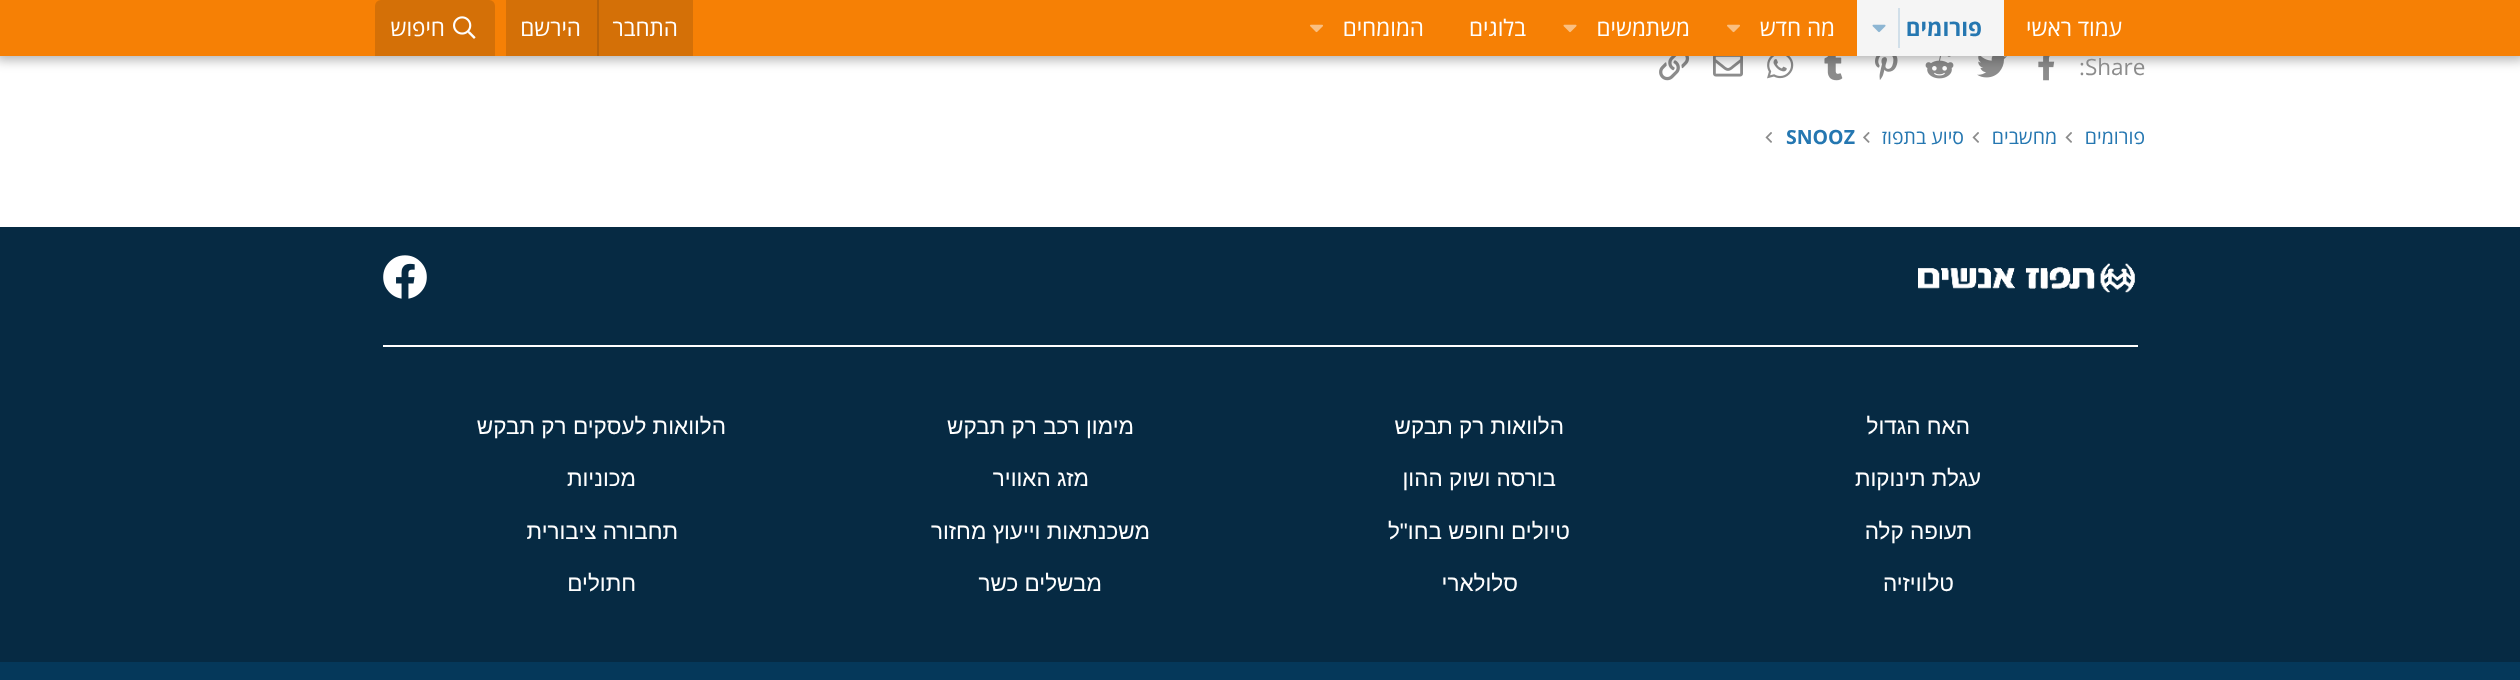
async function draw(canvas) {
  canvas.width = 2520
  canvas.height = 680
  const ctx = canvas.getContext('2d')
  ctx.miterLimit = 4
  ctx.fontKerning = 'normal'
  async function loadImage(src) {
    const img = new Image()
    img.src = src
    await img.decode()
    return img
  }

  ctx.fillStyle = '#fff'
  ctx.fillRect(0, 0, 2520, 680)
  ctx.drawImage(await loadImage('image4.png'), 2038, 56, 17, 25)
  ctx.drawImage(await loadImage('image5.png'), 1977, 56, 30, 22)
  ctx.drawImage(await loadImage('image6.png'), 1925, 56, 29, 23)
  ctx.drawImage(await loadImage('image7.png'), 1875, 56, 23, 24)
  ctx.drawImage(await loadImage('image8.png'), 1824, 56, 19, 25)
  ctx.drawImage(await loadImage('image9.png'), 1767, 56, 27, 23)
  ctx.drawImage(await loadImage('image10.png'), 1713, 56, 30, 21)
  ctx.drawImage(await loadImage('image11.png'), 1659, 56, 31, 25)
  ctx.fillStyle = '#0000004d'
  ctx.filter = 'blur(6px)'
  ctx.beginPath()
  ctx.rect(-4, -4, 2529, 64)
  ctx.fill()
  ctx.filter = 'none'
  ctx.fillStyle = '#f68005'
  ctx.fillRect(0, 0, 2520, 56)
  ctx.direction = 'rtl'
  ctx.font = '22.5px Open Sans'
  ctx.fillStyle = '#fff'
  ctx.fillText('עמוד ראשי', 2122, 36)
  ctx.fillStyle = '#f5f5f5'
  ctx.fillRect(1857, 0, 147, 56)
  ctx.font = 'bold 22.5px Open Sans'
  ctx.fillStyle = '#2577b1'
  ctx.fillText('פורומים', 1982, 36)
  ctx.fillStyle = '#d1dfe9'
  ctx.fillRect(1898, 8, 2, 40)
  ctx.drawImage(await loadImage('image0.png'), 1872, 24, 14, 9)
  ctx.font = '22.5px Open Sans'
  ctx.fillStyle = '#fff'
  ctx.fillText('מה חדש', 1835, 36)
  ctx.drawImage(await loadImage('image1.png'), 1727, 24, 13, 9)
  ctx.fillText('משתמשים', 1690, 36)
  ctx.drawImage(await loadImage('image2.png'), 1563, 24, 14, 9)
  ctx.fillText('בלוגים', 1526, 36)
  ctx.fillText('המומחים', 1424, 36)
  ctx.drawImage(await loadImage('image1.png'), 1310, 24, 13, 9)
  ctx.fillStyle = '#d47007'
  ctx.fillRect(506, 0, 187, 56)
  ctx.fillStyle = '#fff'
  ctx.fillText('התחבר', 678, 36)
  ctx.fillStyle = '#b76209'
  ctx.fillRect(597, 0, 2, 56)
  ctx.fillStyle = '#fff'
  ctx.fillText('הירשם', 581, 36)
  ctx.fillStyle = '#d47007'
  ctx.beginPath()
  ctx.roundRect(375, 0, 120, 56, [6, 6, 0, 0])
  ctx.fill()
  ctx.drawImage(await loadImage('image3.png'), 453, 16, 23, 23)
  ctx.fillStyle = '#fff'
  ctx.fillText('חיפוש', 445, 36)
  ctx.direction = 'ltr'
  ctx.fillStyle = '#8c8c8c'
  ctx.fillText(':Share', 2079, 75)
  ctx.direction = 'rtl'
  ctx.font = '19.5px Open Sans'
  ctx.fillStyle = '#2577b1'
  ctx.fillText('פורומים', 2145, 144)
  ctx.drawImage(await loadImage('image12.png'), 2065, 132, 7, 11)
  ctx.fillText('מחשבים', 2057, 144)
  ctx.drawImage(await loadImage('image12.png'), 1972, 132, 7, 11)
  ctx.fillText('סיוע בתפוז', 1964, 144)
  ctx.drawImage(await loadImage('image13.png'), 1863, 132, 7, 11)
  ctx.direction = 'ltr'
  ctx.font = 'bold 19.5px Open Sans'
  ctx.fillText('SNOOZ', 1786, 144)
  ctx.drawImage(await loadImage('image12.png'), 1765, 132, 7, 11)
  ctx.fillStyle = '#062a43'
  ctx.fillRect(0, 227, 2520, 435)
  ctx.fillStyle = '#fff'
  ctx.fillRect(383, 345, 1755, 2)
  ctx.drawImage(await loadImage('image14.png'), 1918, 263, 217, 30)
  ctx.drawImage(await loadImage('image15.png'), 383, 255, 44, 44)
  ctx.direction = 'rtl'
  ctx.font = '22.5px Liberation Sans'
  ctx.fillText('האח הגדול', 1970, 434)
  ctx.fillText('הלוואות רק תבקש', 1564, 434)
  ctx.fillText('מימון רכב רק תבקש', 1134, 434)
  ctx.fillText('הלוואות לעסקים רק תבקש', 726, 434)
  ctx.fillText('עגלת תינוקות', 1981, 486)
  ctx.fillText('בורסה ושוק ההון', 1556, 486)
  ctx.fillText('מזג האוויר', 1089, 486)
  ctx.fillText('מכוניות', 636, 486)
  ctx.fillText('תעופה קלה', 1972, 539)
  ctx.fillText('טיולים וחופש בחו"ל', 1570, 539)
  ctx.fillText('משכנתאות וייעוץ מחזור', 1150, 539)
  ctx.fillText('תחבורה ציבורית', 678, 539)
  ctx.fillText('טלוויזיה', 1954, 591)
  ctx.fillText('סלולארי', 1518, 591)
  ctx.fillText('מבשלים כשר', 1102, 591)
  ctx.fillText('חתולים', 636, 591)
  ctx.fillStyle = '#05385a'
  ctx.fillRect(0, 662, 2520, 18)
}

draw(document.querySelector('canvas'))
